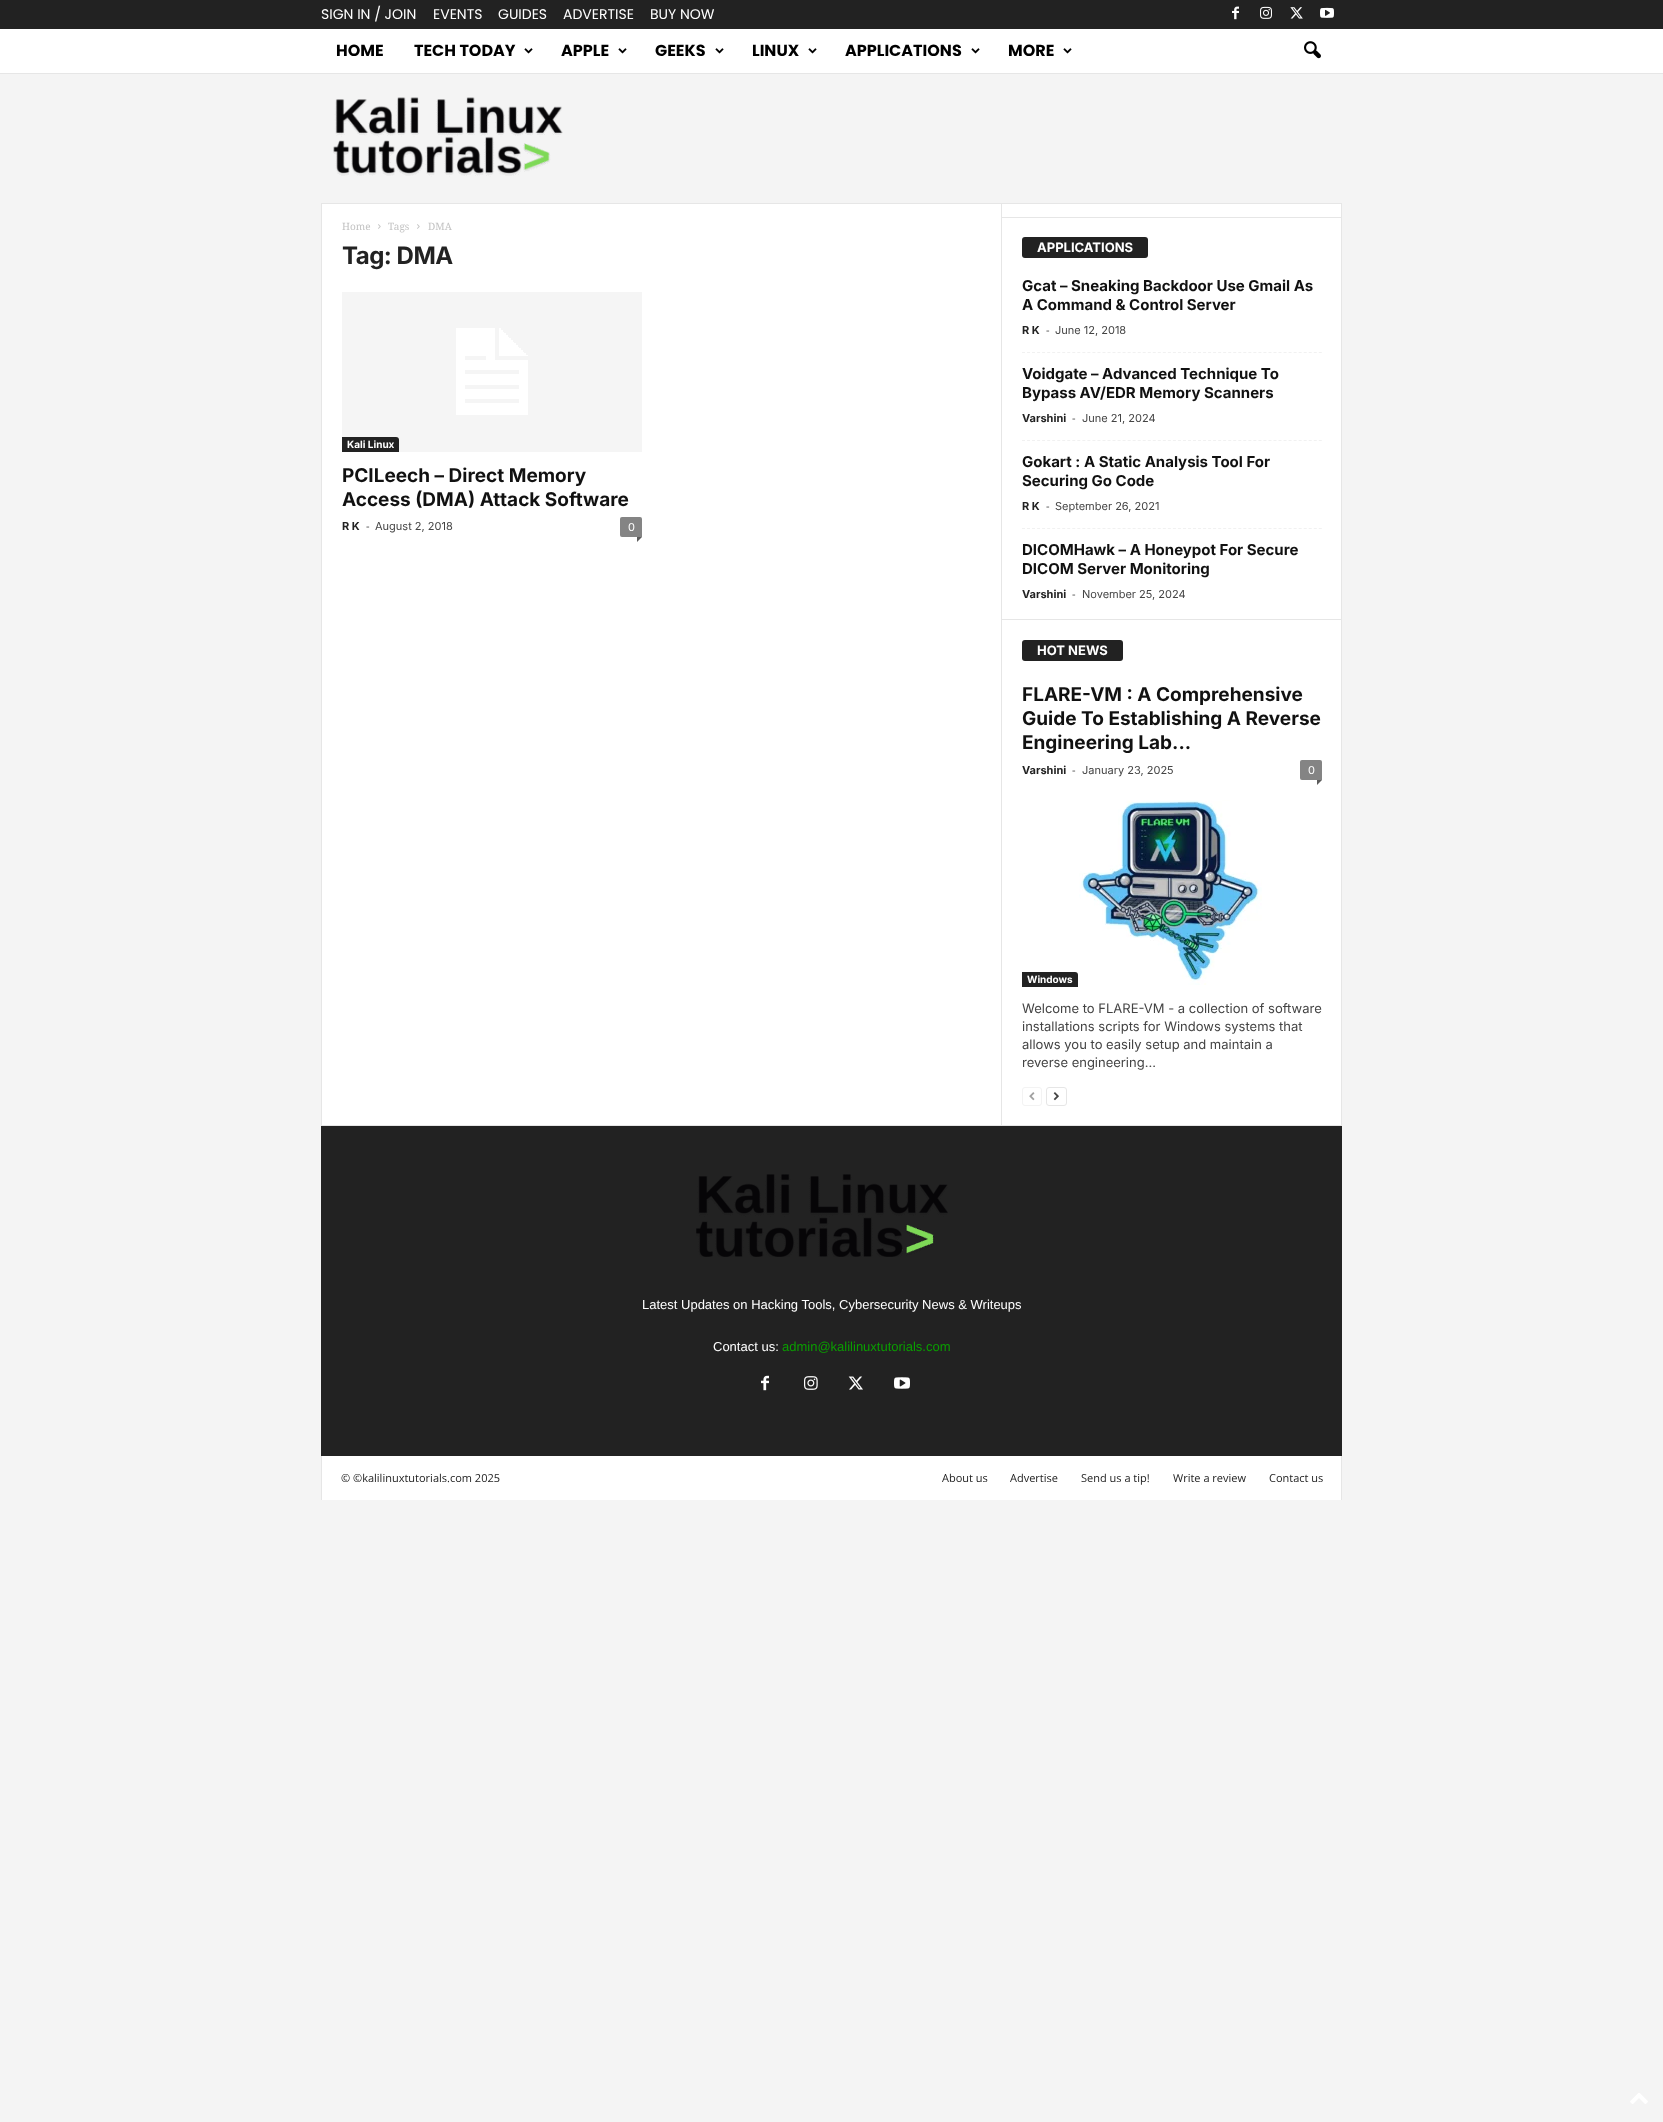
async function draw(canvas) {
  canvas.width = 1663
  canvas.height = 2122
  const ctx = canvas.getContext('2d')
  ctx.miterLimit = 4
  ctx.fontKerning = 'normal'
  async function loadImage(src) {
    const img = new Image()
    img.src = src
    await img.decode()
    return img
  }

  ctx.fillStyle = '#f4f4f4'
  ctx.fillRect(0, 0, 1663, 2122)
  ctx.fillStyle = '#222'
  ctx.fillRect(0, 0, 1663, 29)
  ctx.font = '14px Poppins'
  ctx.fillStyle = '#fff'
  ctx.fillText('SIGN IN / JOIN', 321, 19)
  ctx.fillText('EVENTS', 433, 19)
  ctx.fillText('GUIDES', 498, 19)
  ctx.fillText('ADVERTISE', 563, 19)
  ctx.fillText('BUY NOW', 650, 19)
  ctx.drawImage(await loadImage('image0.png'), 1232, 6, 7, 14)
  ctx.drawImage(await loadImage('image1.png'), 1260, 6, 12, 13)
  ctx.drawImage(await loadImage('image2.png'), 1290, 7, 13, 12)
  ctx.drawImage(await loadImage('image3.png'), 1320, 7, 14, 11)
  ctx.fillRect(0, 29, 1663, 44)
  ctx.fillStyle = '#e6e6e6'
  ctx.fillRect(0, 73, 1663, 1)
  ctx.font = 'bold 16px Poppins'
  ctx.fillStyle = '#000'
  ctx.fillText('HOME', 336, 56)
  ctx.fillText('TECH TODAY', 414, 56)
  ctx.drawImage(await loadImage('image4.png'), 524, 48, 9, 6)
  ctx.fillText('APPLE', 561, 56)
  ctx.drawImage(await loadImage('image4.png'), 618, 48, 9, 6)
  ctx.fillText('GEEKS', 655, 56)
  ctx.drawImage(await loadImage('image4.png'), 715, 48, 9, 6)
  ctx.fillText('LINUX', 752, 56)
  ctx.drawImage(await loadImage('image4.png'), 808, 48, 9, 6)
  ctx.fillText('APPLICATIONS', 845, 56)
  ctx.drawImage(await loadImage('image4.png'), 971, 48, 9, 6)
  ctx.fillText('MORE', 1008, 56)
  ctx.drawImage(await loadImage('image4.png'), 1063, 48, 9, 6)
  ctx.drawImage(await loadImage('image5.png'), 1304, 41, 17, 18)
  ctx.fillStyle = '#e6e6e6'
  ctx.fillRect(321, 203, 1021, 1)
  ctx.drawImage(await loadImage('image6.png'), 333, 97, 230, 80)
  ctx.fillStyle = '#fff'
  ctx.fillRect(322, 204, 1019, 921)
  ctx.fillStyle = '#e6e6e6'
  ctx.fillRect(321, 1125, 1021, 1)
  ctx.fillRect(321, 204, 1, 921)
  ctx.font = '10px Droid Serif'
  ctx.fillStyle = '#c3c3c3'
  ctx.fillText('Home', 342, 230)
  ctx.drawImage(await loadImage('image7.png'), 378, 224, 3, 5)
  ctx.fillText('Tags', 388, 230)
  ctx.drawImage(await loadImage('image7.png'), 417, 224, 3, 5)
  ctx.fillText('DMA', 428, 230)
  ctx.letterSpacing = '-0.5px'
  ctx.font = 'bold 24px Inter'
  ctx.fillStyle = '#222'
  ctx.fillText('Tag: DMA', 342, 264)
  ctx.drawImage(await loadImage('image8.png'), 342, 292, 300, 160)
  ctx.beginPath()
  ctx.roundRect(342, 437, 57, 15, [0, 3, 0, 0])
  ctx.fill()
  ctx.letterSpacing = '0px'
  ctx.font = 'bold 10px Inter'
  ctx.fillStyle = '#fff'
  ctx.fillText('Kali Linux', 347, 448)
  ctx.font = 'bold 19px Inter'
  ctx.fillStyle = '#111'
  ctx.fillText('PCILeech – Direct Memory', 342, 482)
  ctx.fillText('Access (DMA) Attack Software', 342, 506)
  ctx.font = 'bold 11px Inter'
  ctx.fillStyle = '#222'
  ctx.fillText('R K', 342, 530)
  ctx.font = '11px Open Sans'
  ctx.fillStyle = '#444'
  ctx.fillText('-', 366, 530)
  ctx.font = '11px Inter'
  ctx.fillText('August 2, 2018', 375, 530)
  ctx.fillStyle = '#848484'
  ctx.beginPath()
  ctx.roundRect(620, 517, 22, 20, [2, 2, 0, 2])
  ctx.fill()
  ctx.fillStyle = '#fff'
  ctx.fillText('0', 628, 531)
  ctx.fillStyle = '#5b5b5b'
  ctx.beginPath()
  ctx.moveTo(637, 537)
  ctx.lineTo(642, 537)
  ctx.lineTo(637, 542)
  ctx.closePath()
  ctx.fill()
  ctx.fillStyle = '#e6e6e6'
  ctx.fillRect(1001, 204, 1, 921)
  ctx.fillRect(1002, 217, 339, 1)
  ctx.fillStyle = '#222'
  ctx.beginPath()
  ctx.roundRect(1022, 237, 126, 21, 3)
  ctx.fill()
  ctx.font = 'bold 13px Inter'
  ctx.fillStyle = '#fff'
  ctx.fillText('APPLICATIONS', 1037, 252)
  ctx.beginPath()
  ctx.moveTo(1022, 352.5)
  ctx.lineTo(1322, 352.5)
  ctx.strokeStyle = '#f1f1f1'
  ctx.setLineDash([3, 2.03])
  ctx.stroke()
  ctx.font = 'bold 15px Inter'
  ctx.fillStyle = '#111'
  ctx.fillText('Gcat – Sneaking Backdoor Use Gmail As', 1022, 291)
  ctx.fillText('A Command & Control Server', 1022, 310)
  ctx.font = 'bold 11px Inter'
  ctx.fillStyle = '#222'
  ctx.fillText('R K', 1022, 334)
  ctx.font = '11px Open Sans'
  ctx.fillStyle = '#444'
  ctx.fillText('-', 1046, 334)
  ctx.font = '11px Inter'
  ctx.fillText('June 12, 2018', 1055, 334)
  ctx.beginPath()
  ctx.moveTo(1022, 440.5)
  ctx.lineTo(1322, 440.5)
  ctx.stroke()
  ctx.font = 'bold 15px Inter'
  ctx.fillStyle = '#111'
  ctx.fillText('Voidgate – Advanced Technique To', 1022, 379)
  ctx.fillText('Bypass AV/EDR Memory Scanners', 1022, 398)
  ctx.font = 'bold 11px Inter'
  ctx.fillStyle = '#222'
  ctx.fillText('Varshini', 1022, 422)
  ctx.font = '11px Open Sans'
  ctx.fillStyle = '#444'
  ctx.fillText('-', 1072, 422)
  ctx.font = '11px Inter'
  ctx.fillText('June 21, 2024', 1082, 422)
  ctx.beginPath()
  ctx.moveTo(1022, 528.5)
  ctx.lineTo(1322, 528.5)
  ctx.stroke()
  ctx.font = 'bold 15px Inter'
  ctx.fillStyle = '#111'
  ctx.fillText('Gokart : A Static Analysis Tool For', 1022, 467)
  ctx.fillText('Securing Go Code', 1022, 486)
  ctx.font = 'bold 11px Inter'
  ctx.fillStyle = '#222'
  ctx.fillText('R K', 1022, 510)
  ctx.font = '11px Open Sans'
  ctx.fillStyle = '#444'
  ctx.fillText('-', 1046, 510)
  ctx.font = '11px Inter'
  ctx.fillText('September 26, 2021', 1055, 510)
  ctx.font = 'bold 15px Inter'
  ctx.fillStyle = '#111'
  ctx.fillText('DICOMHawk – A Honeypot For Secure', 1022, 555)
  ctx.fillText('DICOM Server Monitoring', 1022, 574)
  ctx.font = 'bold 11px Inter'
  ctx.fillStyle = '#222'
  ctx.fillText('Varshini', 1022, 598)
  ctx.font = '11px Open Sans'
  ctx.fillStyle = '#444'
  ctx.fillText('-', 1072, 598)
  ctx.font = '11px Inter'
  ctx.fillText('November 25, 2024', 1082, 598)
  ctx.fillStyle = '#e6e6e6'
  ctx.fillRect(1002, 619, 339, 1)
  ctx.fillStyle = '#222'
  ctx.beginPath()
  ctx.roundRect(1022, 640, 101, 21, 3)
  ctx.fill()
  ctx.font = 'bold 13px Inter'
  ctx.fillStyle = '#fff'
  ctx.fillText('HOT NEWS', 1037, 655)
  ctx.font = 'bold 19px Inter'
  ctx.fillStyle = '#111'
  ctx.fillText('FLARE-VM : A Comprehensive', 1022, 701)
  ctx.fillText('Guide To Establishing A Reverse', 1022, 725)
  ctx.fillText('Engineering Lab...', 1022, 749)
  ctx.font = 'bold 11px Inter'
  ctx.fillStyle = '#222'
  ctx.fillText('Varshini', 1022, 774)
  ctx.font = '11px Open Sans'
  ctx.fillStyle = '#444'
  ctx.fillText('-', 1072, 774)
  ctx.font = '11px Inter'
  ctx.fillText('January 23, 2025', 1082, 774)
  ctx.fillStyle = '#848484'
  ctx.beginPath()
  ctx.roundRect(1300, 760, 22, 20, [2, 2, 0, 2])
  ctx.fill()
  ctx.fillStyle = '#fff'
  ctx.fillText('0', 1308, 774)
  ctx.fillStyle = '#5b5b5b'
  ctx.beginPath()
  ctx.moveTo(1317, 780)
  ctx.lineTo(1322, 780)
  ctx.lineTo(1317, 785)
  ctx.closePath()
  ctx.fill()
  ctx.fillStyle = '#222'
  ctx.beginPath()
  ctx.roundRect(1022, 972, 56, 15, [0, 3, 0, 0])
  ctx.fill()
  ctx.font = 'bold 10px Inter'
  ctx.fillStyle = '#fff'
  ctx.fillText('Windows', 1027, 983)
  ctx.drawImage(await loadImage('image9.png'), 1079, 800, 183, 185)
  ctx.font = '13px Inter'
  ctx.fillStyle = '#444'
  ctx.fillText('Welcome to FLARE-VM - a collection of software', 1022, 1013)
  ctx.fillText('installations scripts for Windows systems that', 1022, 1031)
  ctx.fillText('allows you to easily setup and maintain a', 1022, 1049)
  ctx.fillText('reverse engineering...', 1022, 1067)
  ctx.beginPath()
  ctx.roundRect(1022.5, 1087.5, 19, 18, 2.5)
  ctx.strokeStyle = '#f3f3f3'
  ctx.setLineDash([])
  ctx.stroke()
  ctx.drawImage(await loadImage('image10.png'), 1029, 1092, 6, 9)
  ctx.beginPath()
  ctx.roundRect(1046.5, 1087.5, 20, 18, 2.5)
  ctx.strokeStyle = '#e6e6e6'
  ctx.stroke()
  ctx.drawImage(await loadImage('image11.png'), 1053, 1092, 6, 9)
  ctx.fillStyle = '#e6e6e6'
  ctx.fillRect(1341, 204, 1, 921)
  ctx.fillStyle = '#222'
  ctx.fillRect(321, 1126, 1021, 330)
  ctx.drawImage(await loadImage('image12.png'), 696, 1174, 252, 83)
  ctx.font = '13px Liberation Sans'
  ctx.fillStyle = '#fff'
  ctx.fillText('Latest Updates on Hacking Tools, Cybersecurity News & Writeups', 642, 1309)
  ctx.fillText('Contact us:', 713, 1351)
  ctx.fillStyle = '#0a9e01'
  ctx.fillText('admin@kalilinuxtutorials.com', 782, 1351)
  ctx.drawImage(await loadImage('image13.png'), 761, 1375, 8, 16)
  ctx.drawImage(await loadImage('image14.png'), 804, 1376, 14, 14)
  ctx.drawImage(await loadImage('image15.png'), 848, 1376, 15, 14)
  ctx.drawImage(await loadImage('image16.png'), 894, 1377, 16, 12)
  ctx.fillStyle = '#fff'
  ctx.fillRect(322, 1456, 1019, 44)
  ctx.fillStyle = '#e6e6e6'
  ctx.fillRect(321, 1456, 1, 44)
  ctx.font = '11px Open Sans'
  ctx.fillStyle = '#222'
  ctx.fillText('© ©kalilinuxtutorials.com 2025', 341, 1482)
  ctx.fillText('About us', 942, 1482)
  ctx.fillText('Advertise', 1010, 1482)
  ctx.fillText('Send us a tip!', 1081, 1482)
  ctx.fillText('Write a review', 1173, 1482)
  ctx.fillText('Contact us', 1269, 1482)
  ctx.fillStyle = '#e6e6e6'
  ctx.fillRect(1341, 1456, 1, 44)
  ctx.drawImage(await loadImage('image17.png'), 1630, 2093, 18, 11)
}

draw(document.querySelector('canvas'))
